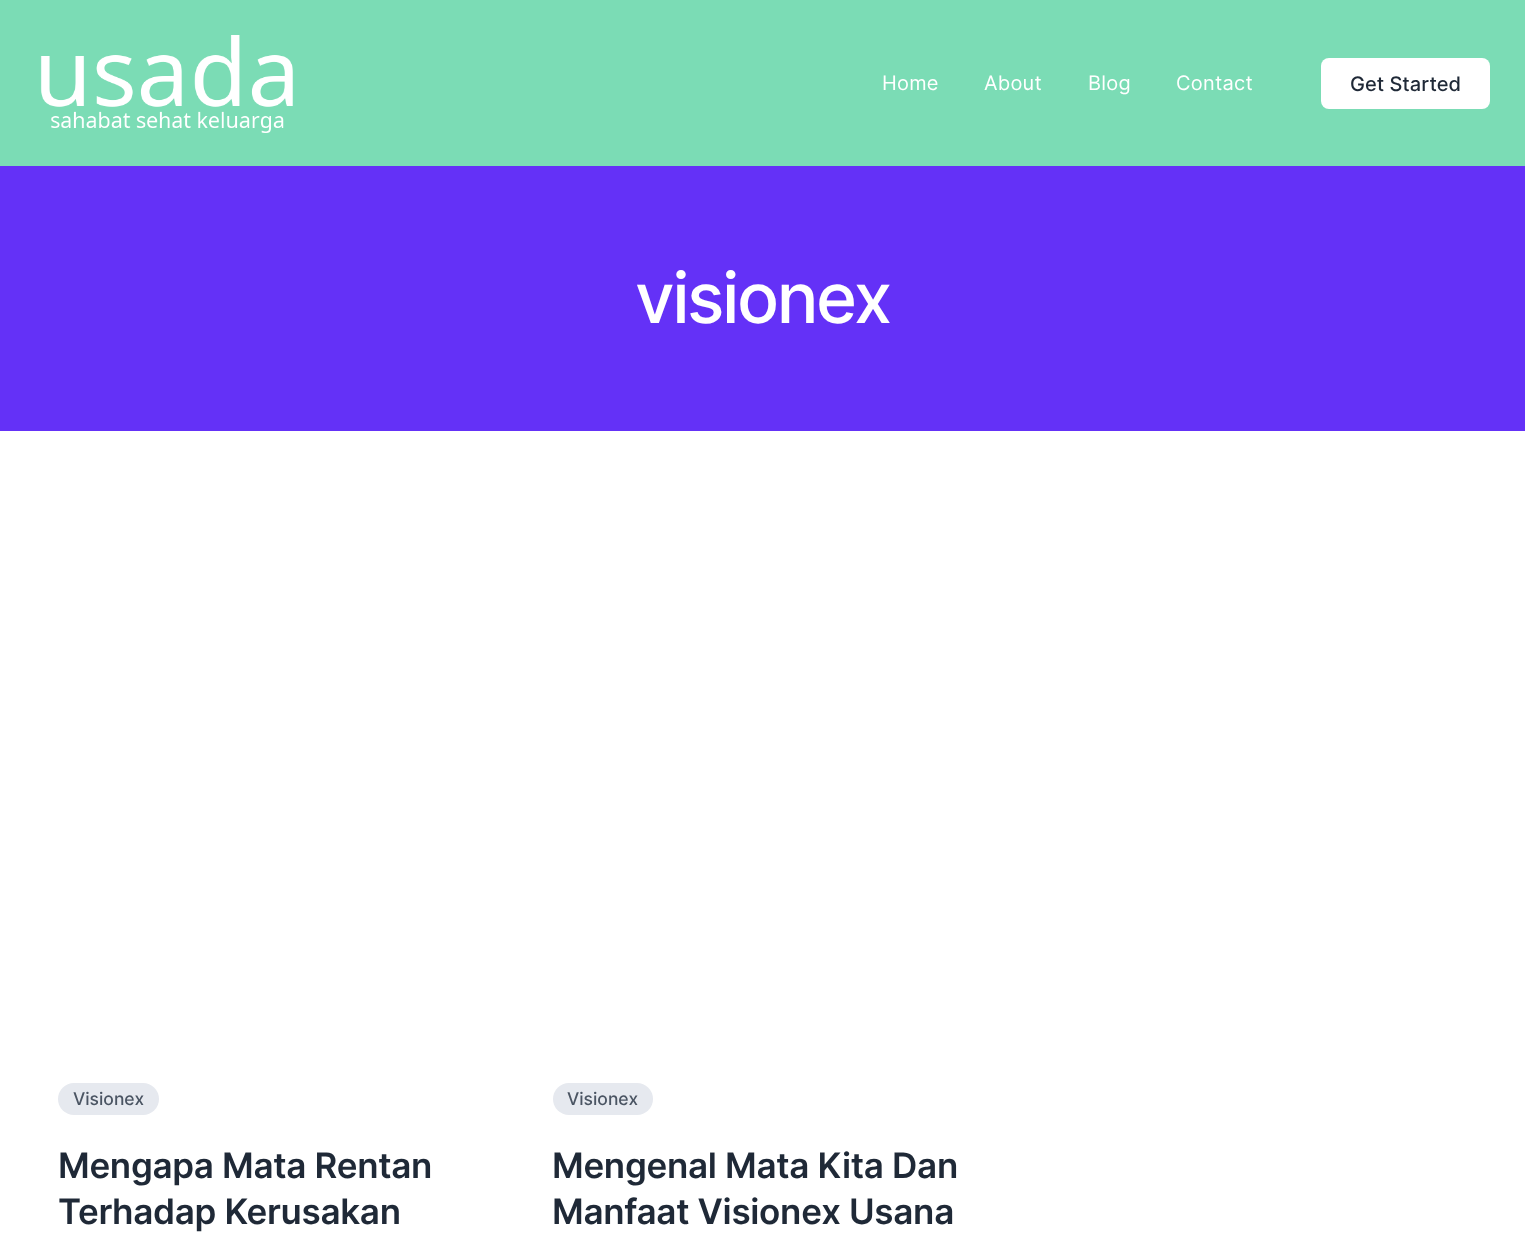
async function draw(canvas) {
  canvas.width = 1525
  canvas.height = 1245
  const ctx = canvas.getContext('2d')
  ctx.miterLimit = 4
  ctx.fontKerning = 'normal'
  async function loadImage(src) {
    const img = new Image()
    img.src = src
    await img.decode()
    return img
  }

  ctx.fillStyle = '#fff'
  ctx.fillRect(0, 0, 1525, 1245)
  ctx.fillStyle = '#7bdcb5'
  ctx.fillRect(0, 0, 1525, 166)
  ctx.drawImage(await loadImage('image0.png'), 40, 35, 253, 98)
  ctx.letterSpacing = '0.25px'
  ctx.font = '20px Inter'
  ctx.fillStyle = '#fff'
  ctx.fillText('Home', 882, 90)
  ctx.fillText('About', 984, 90)
  ctx.fillText('Blog', 1088, 90)
  ctx.fillText('Contact', 1176, 90)
  ctx.beginPath()
  ctx.roundRect(1321, 58, 169, 51, 8)
  ctx.fill()
  ctx.letterSpacing = '0px'
  ctx.font = '500 20px Inter'
  ctx.fillStyle = '#1f2937'
  ctx.fillText('Get Started', 1350, 91)
  ctx.fillStyle = '#6431f7'
  ctx.fillRect(0, 166, 1525, 265)
  ctx.letterSpacing = '-2.5px'
  ctx.font = '500 70px Inter'
  ctx.fillStyle = '#fff'
  ctx.fillText('visionex', 635, 323)
  ctx.fillStyle = '#e6e9ef'
  ctx.beginPath()
  ctx.roundRect(58, 1083, 101, 32, 16)
  ctx.fill()
  ctx.letterSpacing = '0px'
  ctx.font = '500 17.5px Inter'
  ctx.fillStyle = '#4b5563'
  ctx.fillText('Visionex', 73, 1105)
  ctx.letterSpacing = '-0.3px'
  ctx.font = '600 35px Inter'
  ctx.fillStyle = '#1f2937'
  ctx.fillText('Mengapa Mata Rentan', 58, 1178)
  ctx.fillText('Terhadap Kerusakan', 58, 1224)
  ctx.fillStyle = '#e6e9ef'
  ctx.beginPath()
  ctx.roundRect(553, 1083, 100, 32, 16)
  ctx.fill()
  ctx.letterSpacing = '0px'
  ctx.font = '500 17.5px Inter'
  ctx.fillStyle = '#4b5563'
  ctx.fillText('Visionex', 567, 1105)
  ctx.letterSpacing = '-0.3px'
  ctx.font = '600 35px Inter'
  ctx.fillStyle = '#1f2937'
  ctx.fillText('Mengenal Mata Kita Dan', 552, 1178)
  ctx.fillText('Manfaat Visionex Usana', 552, 1224)
}

draw(document.querySelector('canvas'))
